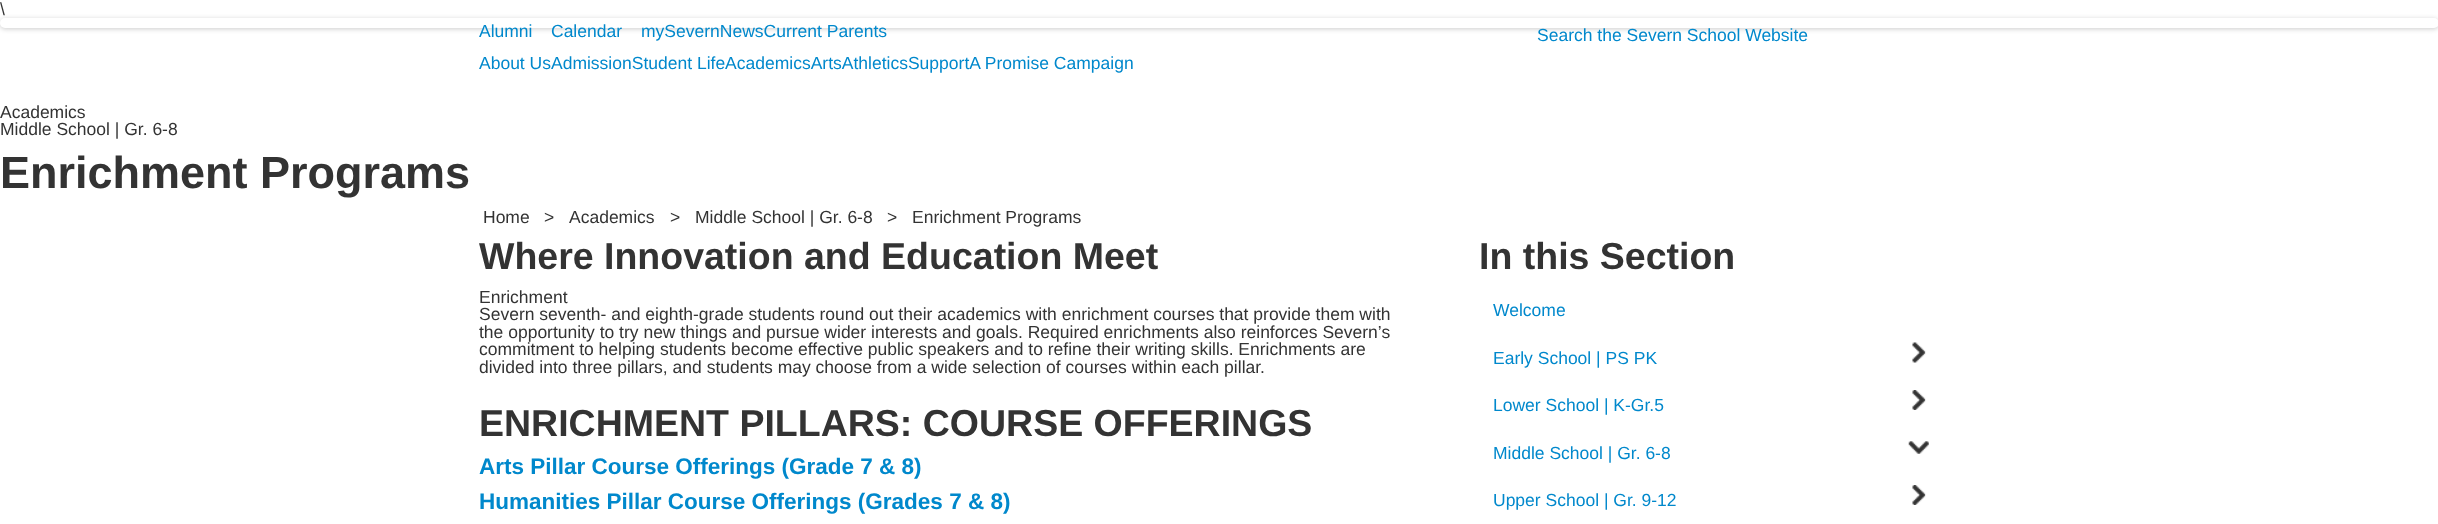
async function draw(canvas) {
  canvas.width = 2438
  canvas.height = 524
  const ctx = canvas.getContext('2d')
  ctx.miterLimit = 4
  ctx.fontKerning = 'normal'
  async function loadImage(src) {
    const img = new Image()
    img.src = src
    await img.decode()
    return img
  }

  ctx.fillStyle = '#fff'
  ctx.fillRect(0, 0, 2438, 524)
  ctx.font = '17.5px Liberation Sans'
  ctx.fillStyle = '#333'
  ctx.fillText('\\', 0, 15)
  ctx.fillStyle = '#00000033'
  ctx.filter = 'blur(2.5px)'
  ctx.beginPath()
  ctx.roundRect(0, 19, 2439, 10, 5)
  ctx.fill()
  ctx.filter = 'none'
  ctx.fillStyle = '#fff'
  ctx.beginPath()
  ctx.roundRect(0, 18, 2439, 10, 5)
  ctx.fill()
  ctx.fillStyle = '#08c'
  ctx.fillText('Alumni', 479, 37)
  ctx.fillText('Calendar', 551, 37)
  ctx.fillText('mySevernNewsCurrent Parents', 641, 37)
  ctx.fillText('Search the Severn School Website', 1537, 41)
  ctx.fillText('About UsAdmissionStudent LifeAcademicsArtsAthleticsSupportA Promise Campaign', 479, 69)
  ctx.fillStyle = '#333'
  ctx.fillText('Academics', 0, 118)
  ctx.fillText('Middle School | Gr. 6-8', 0, 135)
  ctx.font = 'bold 45px Liberation Sans'
  ctx.fillText('Enrichment Programs', 0, 188)
  ctx.font = '17.5px Liberation Sans'
  ctx.fillText('Home', 483, 223)
  ctx.fillText('>', 544, 223)
  ctx.fillText('Academics', 569, 223)
  ctx.fillText('>', 670, 223)
  ctx.fillText('Middle School | Gr. 6-8', 695, 223)
  ctx.fillText('>', 887, 223)
  ctx.fillText('Enrichment Programs', 912, 223)
  ctx.font = 'bold 37.5px Liberation Sans'
  ctx.fillText('Where Innovation and Education Meet', 479, 269)
  ctx.font = '17.5px Liberation Sans'
  ctx.fillText('Enrichment', 479, 303)
  ctx.fillText('Severn seventh- and eighth-grade students round out their academics with enrichment courses that provide them with', 479, 320)
  ctx.fillText('the opportunity to try new things and pursue wider interests and goals. Required enrichments also reinforces Severn’s', 479, 338)
  ctx.fillText('commitment to helping students become effective public speakers and to refine their writing skills. Enrichments are', 479, 355)
  ctx.fillText('divided into three pillars, and students may choose from a wide selection of courses within each pillar.', 479, 373)
  ctx.font = 'bold 37.5px Liberation Sans'
  ctx.fillText('ENRICHMENT PILLARS: COURSE OFFERINGS', 479, 436)
  ctx.font = 'bold 22.5px Liberation Sans'
  ctx.fillStyle = '#08c'
  ctx.fillText('Arts Pillar Course Offerings (Grade 7 & 8)', 479, 474)
  ctx.fillText('Humanities Pillar Course Offerings (Grades 7 & 8)', 479, 509)
  ctx.font = 'bold 37.5px Liberation Sans'
  ctx.fillStyle = '#333'
  ctx.fillText('In this Section', 1479, 269)
  ctx.font = '17.5px Liberation Sans'
  ctx.fillStyle = '#08c'
  ctx.fillText('Welcome', 1493, 316)
  ctx.fillText('Early School | PS PK', 1493, 364)
  ctx.drawImage(await loadImage('image0.png'), 1912, 342, 14, 21)
  ctx.fillText('Lower School | K-Gr.5', 1493, 411)
  ctx.drawImage(await loadImage('image1.png'), 1912, 390, 14, 20)
  ctx.fillText('Middle School | Gr. 6-8', 1493, 459)
  ctx.drawImage(await loadImage('image2.png'), 1908, 441, 21, 13)
  ctx.fillText('Upper School | Gr. 9-12', 1493, 506)
  ctx.drawImage(await loadImage('image1.png'), 1912, 485, 14, 20)
}

draw(document.querySelector('canvas'))
